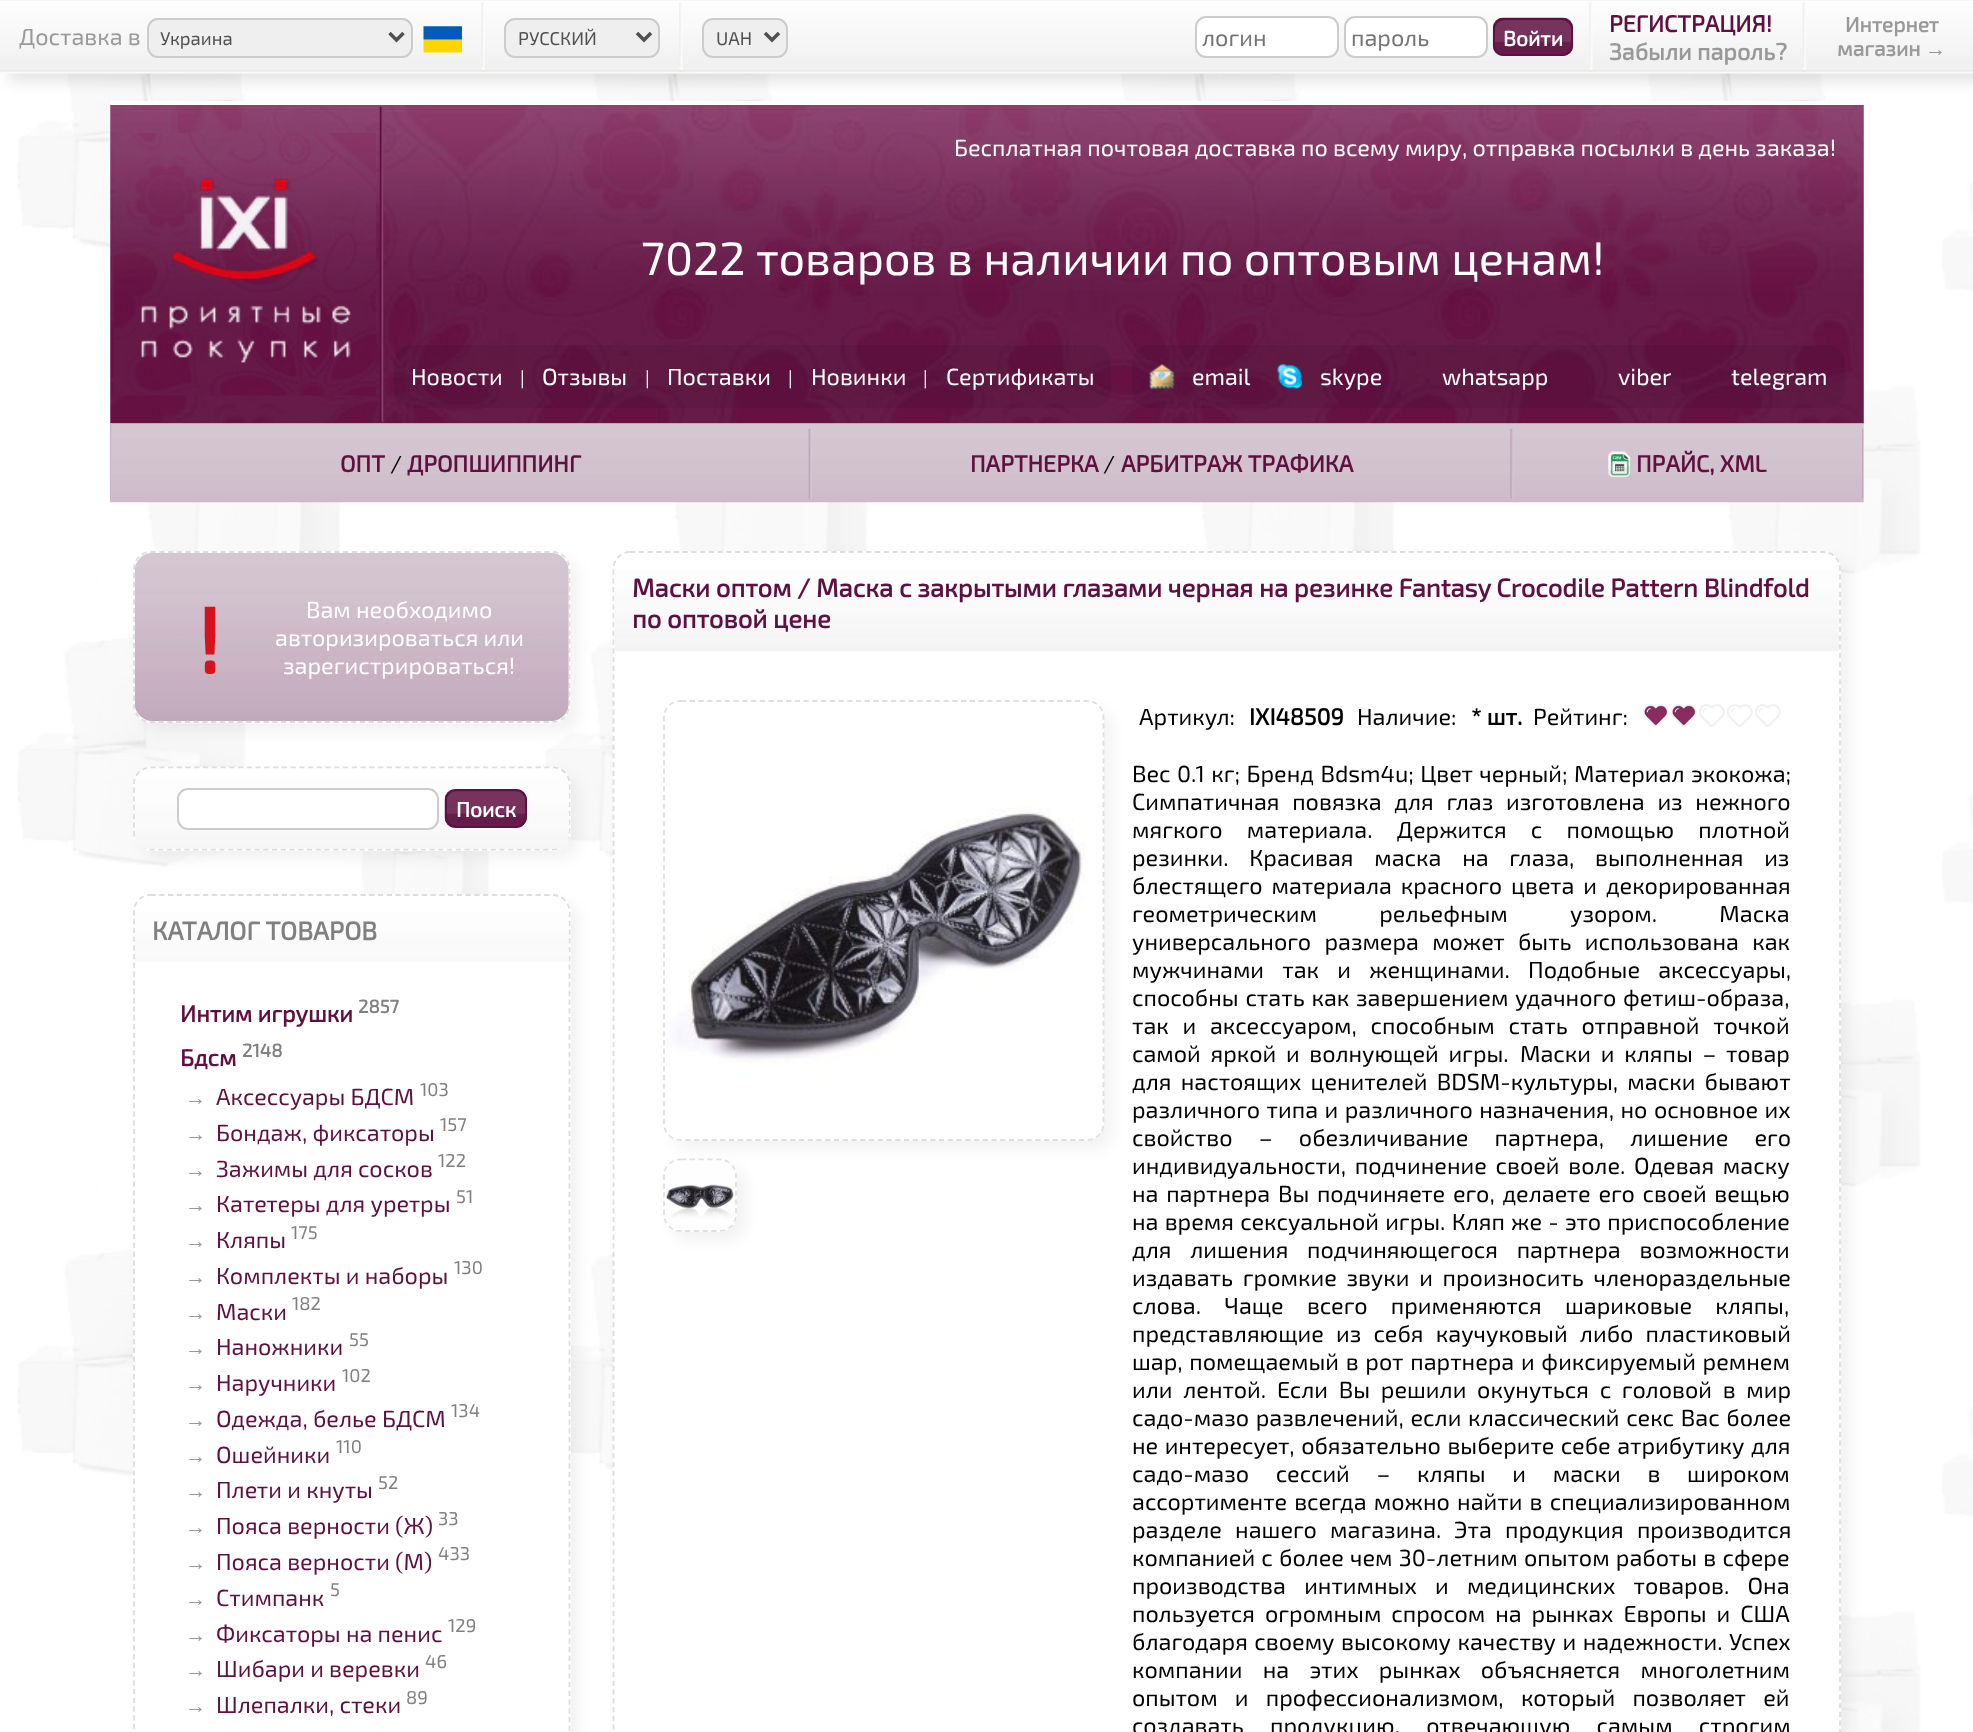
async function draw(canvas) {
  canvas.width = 1973
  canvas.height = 1732
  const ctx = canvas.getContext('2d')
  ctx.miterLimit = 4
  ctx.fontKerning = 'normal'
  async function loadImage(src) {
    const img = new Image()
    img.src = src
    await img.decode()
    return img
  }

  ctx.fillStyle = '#fff'
  ctx.fillRect(0, 0, 1973, 1732)
  ctx.drawImage(await loadImage('image0.png'), 17, 73, 1956, 1659)
  ctx.fillStyle = '#0000001a'
  ctx.filter = 'blur(7px)'
  ctx.beginPath()
  ctx.rect(9, 9, 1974, 73)
  ctx.fill()
  ctx.filter = 'none'
  ctx.drawImage(await loadImage('image1.png'), 0, 0, 1973, 74)
  ctx.font = '23.35px "Exo 2"'
  ctx.fillStyle = '#999'
  ctx.fillText('Доставка в', 19, 45)
  ctx.fillStyle = '#efefef'
  ctx.beginPath()
  ctx.roundRect(148, 19, 264, 38, 10)
  ctx.fill()
  ctx.strokeStyle = '#ccc'
  ctx.lineWidth = 2
  ctx.stroke()
  ctx.beginPath()
  ctx.moveTo(389.5, 33)
  ctx.lineTo(396.5, 40)
  ctx.lineTo(403.5, 33)
  ctx.strokeStyle = '#505050'
  ctx.lineWidth = 3.5
  ctx.stroke()
  ctx.font = '18.5px "Exo 2"'
  ctx.fillStyle = '#505050'
  ctx.fillText('Украина', 160, 45)
  ctx.drawImage(await loadImage('image2.png'), 423, 26, 39, 27)
  ctx.drawImage(await loadImage('image3.png'), 481, 2, 4, 70)
  ctx.fillStyle = '#efefef'
  ctx.beginPath()
  ctx.roundRect(505, 19, 154, 38, 10)
  ctx.fill()
  ctx.strokeStyle = '#ccc'
  ctx.lineWidth = 2
  ctx.stroke()
  ctx.beginPath()
  ctx.moveTo(637, 33)
  ctx.lineTo(644, 40)
  ctx.lineTo(651, 33)
  ctx.strokeStyle = '#505050'
  ctx.lineWidth = 3.5
  ctx.stroke()
  ctx.fillStyle = '#505050'
  ctx.fillText('РУССКИЙ', 518, 45)
  ctx.drawImage(await loadImage('image4.png'), 679, 2, 4, 70)
  ctx.fillStyle = '#efefef'
  ctx.beginPath()
  ctx.roundRect(703, 19, 84, 38, 10)
  ctx.fill()
  ctx.strokeStyle = '#ccc'
  ctx.lineWidth = 2
  ctx.stroke()
  ctx.beginPath()
  ctx.moveTo(765, 33)
  ctx.lineTo(772, 40)
  ctx.lineTo(779, 33)
  ctx.strokeStyle = '#505050'
  ctx.lineWidth = 3.5
  ctx.stroke()
  ctx.fillStyle = '#505050'
  ctx.fillText('UAH', 716, 45)
  ctx.fillStyle = '#fff'
  ctx.beginPath()
  ctx.roundRect(1196, 17, 142, 40, 10)
  ctx.fill()
  ctx.strokeStyle = '#ccc'
  ctx.lineWidth = 2
  ctx.stroke()
  ctx.font = '23.35px "Exo 2"'
  ctx.fillStyle = '#757575'
  ctx.fillText('логин', 1202, 46)
  ctx.fillStyle = '#fff'
  ctx.beginPath()
  ctx.roundRect(1345, 17, 142, 40, 10)
  ctx.fill()
  ctx.stroke()
  ctx.fillStyle = '#757575'
  ctx.fillText('пароль', 1351, 46)
  ctx.drawImage(await loadImage('image5.png'), 1492, 17, 82, 39)
  ctx.beginPath()
  ctx.roundRect(1494, 19, 78, 36, 10)
  ctx.strokeStyle = '#5e1140'
  ctx.stroke()
  ctx.font = 'bold 21px "Exo 2"'
  ctx.fillStyle = '#fff'
  ctx.fillText('Войти', 1503, 46)
  ctx.drawImage(await loadImage('image4.png'), 1589, 2, 4, 70)
  ctx.font = 'bold 23.35px "Exo 2"'
  ctx.fillStyle = '#5e1140'
  ctx.fillText('РЕГИСТРАЦИЯ!', 1609, 32)
  ctx.fillStyle = '#999'
  ctx.fillText('Забыли пароль?', 1609, 60)
  ctx.drawImage(await loadImage('image6.png'), 1802, 2, 4, 70)
  ctx.font = 'bold 21px "Exo 2"'
  ctx.fillText('Интернет', 1845, 32)
  ctx.fillText('магазин', 1837, 56)
  ctx.font = 'bold 21px Liberation Serif'
  ctx.fillText('→', 1925, 56)
  ctx.drawImage(await loadImage('image7.png'), 110, 105, 1754, 319)
  ctx.fillStyle = '#fff'
  ctx.fillRect(110, 101, 1716, 4)
  ctx.drawImage(await loadImage('image8.png'), 114, 133, 262, 263)
  ctx.drawImage(await loadImage('image9.png'), 379, 106, 5, 316)
  ctx.font = '23.35px "Exo 2"'
  ctx.fillText('Бесплатная почтовая доставка по всему миру, отправка посылки в день заказа!', 954, 156)
  ctx.font = '46.7px "Exo 2"'
  ctx.fillText('7022 товаров в наличии по оптовым ценам!', 641, 275)
  ctx.fillStyle = '#00000012'
  ctx.beginPath()
  ctx.roundRect(394, 345, 717, 63, 18)
  ctx.fill()
  ctx.font = '23.35px "Exo 2"'
  ctx.fillStyle = '#fff'
  ctx.fillText('Новости', 411, 385)
  ctx.font = '19px "Exo 2"'
  ctx.fillText('|', 520, 385)
  ctx.font = '23.35px "Exo 2"'
  ctx.fillText('Отзывы', 542, 385)
  ctx.font = '19px "Exo 2"'
  ctx.fillText('|', 645, 385)
  ctx.font = '23.35px "Exo 2"'
  ctx.fillText('Поставки', 667, 385)
  ctx.font = '19px "Exo 2"'
  ctx.fillText('|', 788, 385)
  ctx.font = '23.35px "Exo 2"'
  ctx.fillText('Новинки', 811, 385)
  ctx.font = '19px "Exo 2"'
  ctx.fillText('|', 923, 385)
  ctx.font = '23.35px "Exo 2"'
  ctx.fillText('Сертификаты', 946, 385)
  ctx.fillStyle = '#00000012'
  ctx.beginPath()
  ctx.roundRect(1132, 345, 713, 63, 18)
  ctx.fill()
  ctx.drawImage(await loadImage('image10.png'), 1149, 364, 26, 25)
  ctx.fillStyle = '#fff'
  ctx.fillText('email', 1192, 385)
  ctx.drawImage(await loadImage('image11.png'), 1277, 364, 25, 25)
  ctx.fillText('skype', 1320, 385)
  ctx.fillText('whatsapp', 1442, 385)
  ctx.fillText('viber', 1618, 385)
  ctx.fillText('telegram', 1731, 385)
  ctx.drawImage(await loadImage('image12.png'), 110, 423, 1754, 80)
  ctx.drawImage(await loadImage('image13.png'), 110, 423, 2, 80)
  ctx.font = 'bold 23.35px "Exo 2"'
  ctx.fillStyle = '#5e1140'
  ctx.fillText('ОПТ', 340, 472)
  ctx.font = '23.35px "Exo 2"'
  ctx.fillStyle = '#000'
  ctx.fillText('/', 390, 472)
  ctx.font = 'bold 23.35px "Exo 2"'
  ctx.fillStyle = '#5e1140'
  ctx.fillText('ДРОПШИППИНГ', 407, 472)
  ctx.drawImage(await loadImage('image14.png'), 808, 428, 4, 71)
  ctx.fillText('ПАРТНЕРКА', 970, 472)
  ctx.font = '23.35px "Exo 2"'
  ctx.fillStyle = '#000'
  ctx.fillText('/', 1103, 472)
  ctx.font = 'bold 23.35px "Exo 2"'
  ctx.fillStyle = '#5e1140'
  ctx.fillText('АРБИТРАЖ ТРАФИКА', 1121, 472)
  ctx.drawImage(await loadImage('image15.png'), 1510, 428, 4, 71)
  ctx.drawImage(await loadImage('image16.png'), 1608, 451, 23, 27)
  ctx.fillText('ПРАЙС, XML', 1636, 472)
  ctx.drawImage(await loadImage('image17.png'), 1862, 428, 2, 71)
  ctx.fillStyle = '#0000000d'
  ctx.filter = 'blur(7px)'
  ctx.beginPath()
  ctx.roundRect(142, 560, 437, 172, 18)
  ctx.fill()
  ctx.filter = 'none'
  ctx.fillStyle = '#fff'
  ctx.beginPath()
  ctx.roundRect(133, 551, 438, 172, 18)
  ctx.fill()
  ctx.beginPath()
  ctx.moveTo(150.5, 552)
  ctx.lineTo(553, 552)
  ctx.bezierCurveTo(562, 552, 569.5, 559.5, 569.5, 569)
  ctx.lineTo(569.5, 705)
  ctx.bezierCurveTo(569.5, 714.5, 562, 722, 553, 722)
  ctx.lineTo(150.5, 722)
  ctx.bezierCurveTo(141.5, 722, 134, 714.5, 134, 705)
  ctx.lineTo(134, 569)
  ctx.bezierCurveTo(134, 559.5, 141.5, 552, 150.5, 552)
  ctx.closePath()
  ctx.strokeStyle = '#ddd'
  ctx.lineWidth = 1.8
  ctx.setLineDash([5.25, 3.5])
  ctx.stroke()
  ctx.drawImage(await loadImage('image18.png'), 134, 553, 435, 168)
  ctx.font = 'bold 93px "Exo 2"'
  ctx.fillStyle = '#d5131e'
  ctx.fillText('!', 196, 674)
  ctx.font = '23.35px "Exo 2"'
  ctx.fillStyle = '#fff'
  ctx.fillText('Вам необходимо', 306, 618)
  ctx.fillText('авторизироваться или', 275, 646)
  ctx.fillText('зарегистрироваться!', 283, 674)
  ctx.fillStyle = '#0000000d'
  ctx.filter = 'blur(7px)'
  ctx.beginPath()
  ctx.roundRect(142, 775, 437, 84, 18)
  ctx.fill()
  ctx.filter = 'none'
  ctx.fillStyle = '#fff'
  ctx.beginPath()
  ctx.roundRect(133, 767, 438, 84, 18)
  ctx.fill()
  ctx.beginPath()
  ctx.moveTo(150.5, 767.5)
  ctx.lineTo(553, 767.5)
  ctx.bezierCurveTo(562, 767.5, 569.5, 775, 569.5, 784)
  ctx.lineTo(569.5, 833)
  ctx.bezierCurveTo(569.5, 842, 562, 849.5, 553, 849.5)
  ctx.lineTo(150.5, 849.5)
  ctx.bezierCurveTo(141.5, 849.5, 134, 842, 134, 833)
  ctx.lineTo(134, 784)
  ctx.bezierCurveTo(134, 775, 141.5, 767.5, 150.5, 767.5)
  ctx.closePath()
  ctx.stroke()
  ctx.drawImage(await loadImage('image19.png'), 135, 768, 434, 81)
  ctx.beginPath()
  ctx.roundRect(178, 789, 260, 40, 10)
  ctx.fill()
  ctx.strokeStyle = '#ccc'
  ctx.lineWidth = 2
  ctx.setLineDash([])
  ctx.stroke()
  ctx.drawImage(await loadImage('image20.png'), 444, 789, 83, 39)
  ctx.beginPath()
  ctx.roundRect(446, 790, 80, 37, 10)
  ctx.strokeStyle = '#5e1140'
  ctx.stroke()
  ctx.font = 'bold 21px "Exo 2"'
  ctx.fillText('Поиск', 456, 817)
  ctx.fillStyle = '#0000000d'
  ctx.filter = 'blur(7px)'
  ctx.beginPath()
  ctx.roundRect(142, 903, 437, 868, 18)
  ctx.fill()
  ctx.filter = 'none'
  ctx.fillStyle = '#fff'
  ctx.beginPath()
  ctx.roundRect(133, 894, 438, 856, 18)
  ctx.fill()
  ctx.beginPath()
  ctx.moveTo(150.5, 895)
  ctx.lineTo(553, 895)
  ctx.bezierCurveTo(562, 895, 569.5, 902.5, 569.5, 912)
  ctx.lineTo(569.5, 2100)
  ctx.bezierCurveTo(569.5, 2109, 562, 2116.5, 553, 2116.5)
  ctx.lineTo(150.5, 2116.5)
  ctx.bezierCurveTo(141.5, 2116.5, 134, 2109, 134, 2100)
  ctx.lineTo(134, 912)
  ctx.bezierCurveTo(134, 902.5, 141.5, 895, 150.5, 895)
  ctx.closePath()
  ctx.strokeStyle = '#ddd'
  ctx.lineWidth = 1.8
  ctx.setLineDash([5.25, 3.5])
  ctx.stroke()
  ctx.drawImage(await loadImage('image21.png'), 135, 912, 434, 50)
  ctx.font = 'bold 25.65px "Exo 2"'
  ctx.fillStyle = '#808080'
  ctx.fillText('КАТАЛОГ ТОВАРОВ', 152, 940)
  ctx.font = 'bold 23.35px "Exo 2"'
  ctx.fillStyle = '#5e1140'
  ctx.fillText('Интим игрушки', 180, 1022)
  ctx.font = 'bold 18.5px "Exo 2"'
  ctx.fillStyle = '#808080'
  ctx.fillText('2857', 358, 1013)
  ctx.font = 'bold 23.35px "Exo 2"'
  ctx.fillStyle = '#5e1140'
  ctx.fillText('Бдсм', 180, 1066)
  ctx.font = 'bold 18.5px "Exo 2"'
  ctx.fillStyle = '#808080'
  ctx.fillText('2148', 242, 1057)
  ctx.font = '21px Liberation Serif'
  ctx.fillStyle = '#999'
  ctx.fillText('→', 185, 1105)
  ctx.font = '23.35px "Exo 2"'
  ctx.fillStyle = '#5e1140'
  ctx.fillText('Аксессуары БДСМ', 216, 1105)
  ctx.font = '18.5px "Exo 2"'
  ctx.fillStyle = '#808080'
  ctx.fillText('103', 420, 1096)
  ctx.font = '21px Liberation Serif'
  ctx.fillStyle = '#999'
  ctx.fillText('→', 185, 1141)
  ctx.font = '23.35px "Exo 2"'
  ctx.fillStyle = '#5e1140'
  ctx.fillText('Бондаж, фиксаторы', 216, 1141)
  ctx.font = '18.5px "Exo 2"'
  ctx.fillStyle = '#808080'
  ctx.fillText('157', 440, 1131)
  ctx.font = '21px Liberation Serif'
  ctx.fillStyle = '#999'
  ctx.fillText('→', 185, 1177)
  ctx.font = '23.35px "Exo 2"'
  ctx.fillStyle = '#5e1140'
  ctx.fillText('Зажимы для сосков', 216, 1177)
  ctx.font = '18.5px "Exo 2"'
  ctx.fillStyle = '#808080'
  ctx.fillText('122', 438, 1167)
  ctx.font = '21px Liberation Serif'
  ctx.fillStyle = '#999'
  ctx.fillText('→', 185, 1212)
  ctx.font = '23.35px "Exo 2"'
  ctx.fillStyle = '#5e1140'
  ctx.fillText('Катетеры для уретры', 216, 1212)
  ctx.font = '18.5px "Exo 2"'
  ctx.fillStyle = '#808080'
  ctx.fillText('51', 456, 1203)
  ctx.font = '21px Liberation Serif'
  ctx.fillStyle = '#999'
  ctx.fillText('→', 185, 1248)
  ctx.font = '23.35px "Exo 2"'
  ctx.fillStyle = '#5e1140'
  ctx.fillText('Кляпы', 216, 1248)
  ctx.font = '18.5px "Exo 2"'
  ctx.fillStyle = '#808080'
  ctx.fillText('175', 291, 1239)
  ctx.font = '21px Liberation Serif'
  ctx.fillStyle = '#999'
  ctx.fillText('→', 185, 1284)
  ctx.font = '23.35px "Exo 2"'
  ctx.fillStyle = '#5e1140'
  ctx.fillText('Комплекты и наборы', 216, 1284)
  ctx.font = '18.5px "Exo 2"'
  ctx.fillStyle = '#808080'
  ctx.fillText('130', 454, 1274)
  ctx.font = '21px Liberation Serif'
  ctx.fillStyle = '#999'
  ctx.fillText('→', 185, 1320)
  ctx.font = '23.35px "Exo 2"'
  ctx.fillStyle = '#5e1140'
  ctx.fillText('Маски', 216, 1320)
  ctx.font = '18.5px "Exo 2"'
  ctx.fillStyle = '#808080'
  ctx.fillText('182', 292, 1310)
  ctx.font = '21px Liberation Serif'
  ctx.fillStyle = '#999'
  ctx.fillText('→', 185, 1355)
  ctx.font = '23.35px "Exo 2"'
  ctx.fillStyle = '#5e1140'
  ctx.fillText('Наножники', 216, 1355)
  ctx.font = '18.5px "Exo 2"'
  ctx.fillStyle = '#808080'
  ctx.fillText('55', 349, 1346)
  ctx.font = '21px Liberation Serif'
  ctx.fillStyle = '#999'
  ctx.fillText('→', 185, 1391)
  ctx.font = '23.35px "Exo 2"'
  ctx.fillStyle = '#5e1140'
  ctx.fillText('Наручники', 216, 1391)
  ctx.font = '18.5px "Exo 2"'
  ctx.fillStyle = '#808080'
  ctx.fillText('102', 342, 1382)
  ctx.font = '21px Liberation Serif'
  ctx.fillStyle = '#999'
  ctx.fillText('→', 185, 1427)
  ctx.font = '23.35px "Exo 2"'
  ctx.fillStyle = '#5e1140'
  ctx.fillText('Одежда, белье БДСМ', 216, 1427)
  ctx.font = '18.5px "Exo 2"'
  ctx.fillStyle = '#808080'
  ctx.fillText('134', 451, 1417)
  ctx.font = '21px Liberation Serif'
  ctx.fillStyle = '#999'
  ctx.fillText('→', 185, 1463)
  ctx.font = '23.35px "Exo 2"'
  ctx.fillStyle = '#5e1140'
  ctx.fillText('Ошейники', 216, 1463)
  ctx.font = '18.5px "Exo 2"'
  ctx.fillStyle = '#808080'
  ctx.fillText('110', 336, 1453)
  ctx.font = '21px Liberation Serif'
  ctx.fillStyle = '#999'
  ctx.fillText('→', 185, 1498)
  ctx.font = '23.35px "Exo 2"'
  ctx.fillStyle = '#5e1140'
  ctx.fillText('Плети и кнуты', 216, 1498)
  ctx.font = '18.5px "Exo 2"'
  ctx.fillStyle = '#808080'
  ctx.fillText('52', 378, 1489)
  ctx.font = '21px Liberation Serif'
  ctx.fillStyle = '#999'
  ctx.fillText('→', 185, 1534)
  ctx.font = '23.35px "Exo 2"'
  ctx.fillStyle = '#5e1140'
  ctx.fillText('Пояса верности (Ж)', 216, 1534)
  ctx.font = '18.5px "Exo 2"'
  ctx.fillStyle = '#808080'
  ctx.fillText('33', 438, 1525)
  ctx.font = '21px Liberation Serif'
  ctx.fillStyle = '#999'
  ctx.fillText('→', 185, 1570)
  ctx.font = '23.35px "Exo 2"'
  ctx.fillStyle = '#5e1140'
  ctx.fillText('Пояса верности (М)', 216, 1570)
  ctx.font = '18.5px "Exo 2"'
  ctx.fillStyle = '#808080'
  ctx.fillText('433', 438, 1560)
  ctx.font = '21px Liberation Serif'
  ctx.fillStyle = '#999'
  ctx.fillText('→', 185, 1606)
  ctx.font = '23.35px "Exo 2"'
  ctx.fillStyle = '#5e1140'
  ctx.fillText('Стимпанк', 216, 1606)
  ctx.font = '18.5px "Exo 2"'
  ctx.fillStyle = '#808080'
  ctx.fillText('5', 330, 1596)
  ctx.font = '21px Liberation Serif'
  ctx.fillStyle = '#999'
  ctx.fillText('→', 185, 1642)
  ctx.font = '23.35px "Exo 2"'
  ctx.fillStyle = '#5e1140'
  ctx.fillText('Фиксаторы на пенис', 216, 1642)
  ctx.font = '18.5px "Exo 2"'
  ctx.fillStyle = '#808080'
  ctx.fillText('129', 448, 1632)
  ctx.font = '21px Liberation Serif'
  ctx.fillStyle = '#999'
  ctx.fillText('→', 185, 1677)
  ctx.font = '23.35px "Exo 2"'
  ctx.fillStyle = '#5e1140'
  ctx.fillText('Шибари и веревки', 216, 1677)
  ctx.font = '18.5px "Exo 2"'
  ctx.fillStyle = '#808080'
  ctx.fillText('46', 425, 1668)
  ctx.font = '21px Liberation Serif'
  ctx.fillStyle = '#999'
  ctx.fillText('→', 185, 1713)
  ctx.font = '23.35px "Exo 2"'
  ctx.fillStyle = '#5e1140'
  ctx.fillText('Шлепалки, стеки', 216, 1713)
  ctx.font = '18.5px "Exo 2"'
  ctx.fillStyle = '#808080'
  ctx.fillText('89', 406, 1704)
  ctx.fillStyle = '#0000000d'
  ctx.filter = 'blur(7px)'
  ctx.beginPath()
  ctx.roundRect(621, 560, 1229, 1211, 18)
  ctx.fill()
  ctx.filter = 'none'
  ctx.fillStyle = '#fff'
  ctx.beginPath()
  ctx.roundRect(613, 551, 1228, 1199, 18)
  ctx.fill()
  ctx.beginPath()
  ctx.moveTo(630, 552)
  ctx.lineTo(1823.5, 552)
  ctx.bezierCurveTo(1832.5, 552, 1840, 559.5, 1840, 569)
  ctx.lineTo(1840, 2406)
  ctx.bezierCurveTo(1840, 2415.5, 1832.5, 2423, 1823.5, 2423)
  ctx.lineTo(630, 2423)
  ctx.bezierCurveTo(621, 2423, 613.5, 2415.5, 613.5, 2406)
  ctx.lineTo(613.5, 569)
  ctx.bezierCurveTo(613.5, 559.5, 621, 552, 630, 552)
  ctx.closePath()
  ctx.stroke()
  ctx.drawImage(await loadImage('image22.png'), 614, 570, 1225, 81)
  ctx.font = 'bold 25.65px "Exo 2"'
  ctx.fillStyle = '#5e1140'
  ctx.fillText('Маски оптом / Маска с закрытыми глазами черная на резинке Fantasy Crocodile Pattern Blindfold', 632, 597)
  ctx.fillText('по оптовой цене', 632, 628)
  ctx.fillStyle = '#0f0f0f0d'
  ctx.filter = 'blur(7px)'
  ctx.beginPath()
  ctx.roundRect(672, 709, 441, 441, 18)
  ctx.fill()
  ctx.filter = 'none'
  ctx.fillStyle = '#fff'
  ctx.beginPath()
  ctx.roundRect(663, 700, 441, 441, 18)
  ctx.fill()
  ctx.beginPath()
  ctx.moveTo(681, 701)
  ctx.lineTo(1087, 701)
  ctx.bezierCurveTo(1096, 701, 1103.5, 708.5, 1103.5, 717.5)
  ctx.lineTo(1103.5, 1123.5)
  ctx.bezierCurveTo(1103.5, 1132.5, 1096, 1140, 1087, 1140)
  ctx.lineTo(681, 1140)
  ctx.bezierCurveTo(671.5, 1140, 664, 1132.5, 664, 1123.5)
  ctx.lineTo(664, 717.5)
  ctx.bezierCurveTo(664, 708.5, 671.5, 701, 681, 701)
  ctx.closePath()
  ctx.strokeStyle = '#dfdfdf'
  ctx.stroke()
  ctx.drawImage(await loadImage('image23.png'), 665, 702, 437, 437)
  ctx.fillStyle = '#0000000d'
  ctx.filter = 'blur(7px)'
  ctx.beginPath()
  ctx.roundRect(672, 1167, 74, 74, 18)
  ctx.fill()
  ctx.filter = 'none'
  ctx.fillStyle = '#fff'
  ctx.beginPath()
  ctx.roundRect(663, 1159, 74, 73, 18)
  ctx.fill()
  ctx.beginPath()
  ctx.moveTo(681, 1159.5)
  ctx.lineTo(719, 1159.5)
  ctx.bezierCurveTo(728.5, 1159.5, 736, 1167, 736, 1176)
  ctx.lineTo(736, 1214.5)
  ctx.bezierCurveTo(736, 1223.5, 728.5, 1231, 719, 1231)
  ctx.lineTo(681, 1231)
  ctx.bezierCurveTo(671.5, 1231, 664, 1223.5, 664, 1214.5)
  ctx.lineTo(664, 1176)
  ctx.bezierCurveTo(664, 1167, 671.5, 1159.5, 681, 1159.5)
  ctx.closePath()
  ctx.stroke()
  ctx.drawImage(await loadImage('image24.png'), 665, 1160, 70, 70)
  ctx.font = '23.35px "Exo 2"'
  ctx.fillStyle = '#000'
  ctx.fillText('Артикул:', 1139, 725)
  ctx.font = 'bold 23.35px "Exo 2"'
  ctx.fillText('IXI48509', 1249, 725)
  ctx.font = '23.35px "Exo 2"'
  ctx.fillText('Наличие:', 1357, 725)
  ctx.font = 'bold 23.35px "Exo 2"'
  ctx.fillText('* шт.', 1471, 725)
  ctx.font = '23.35px "Exo 2"'
  ctx.fillText('Рейтинг:', 1533, 725)
  ctx.drawImage(await loadImage('image25.png'), 1643, 704, 138, 23)
  ctx.wordSpacing = '1.25px'
  ctx.fillText('Вес 0.1 кг; Бренд Bdsm4u; Цвет черный; Материал экокожа;', 1132, 782)
  ctx.wordSpacing = '7.5px'
  ctx.fillText('Симпатичная повязка для глаз изготовлена из нежного', 1132, 810)
  ctx.wordSpacing = '19px'
  ctx.fillText('мягкого материала. Держится с помощью плотной', 1132, 838)
  ctx.wordSpacing = '15.5px'
  ctx.fillText('резинки. Красивая маска на глаза, выполненная из', 1132, 866)
  ctx.wordSpacing = '3.75px'
  ctx.fillText('блестящего материала красного цвета и декорированная', 1132, 894)
  ctx.wordSpacing = '57px'
  ctx.fillText('геометрическим рельефным узором. Маска', 1132, 922)
  ctx.wordSpacing = '8px'
  ctx.fillText('универсального размера может быть использована как', 1132, 950)
  ctx.wordSpacing = '13px'
  ctx.fillText('мужчинами так и женщинами. Подобные аксессуары,', 1132, 978)
  ctx.wordSpacing = '1.5px'
  ctx.fillText('способны стать как завершением удачного фетиш-образа,', 1132, 1006)
  ctx.wordSpacing = '8.5px'
  ctx.fillText('так и аксессуаром, способным стать отправной точкой', 1132, 1034)
  ctx.wordSpacing = '4.5px'
  ctx.fillText('самой яркой и волнующей игры.', 1132, 1062)
  ctx.fillText('Маски и кляпы – товар', 1520, 1062)
  ctx.wordSpacing = '4px'
  ctx.fillText('для настоящих ценителей BDSM-культуры, маски бывают', 1132, 1090)
  ctx.wordSpacing = '1.25px'
  ctx.fillText('различного типа и различного назначения, но основное их', 1132, 1118)
  ctx.wordSpacing = '21px'
  ctx.fillText('свойство – обезличивание партнера, лишение его', 1132, 1146)
  ctx.wordSpacing = '3.5px'
  ctx.fillText('индивидуальности, подчинение своей воле. Одевая маску', 1132, 1174)
  ctx.wordSpacing = '2.5px'
  ctx.fillText('на партнера Вы подчиняете его, делаете его своей вещью', 1132, 1202)
  ctx.wordSpacing = '1px'
  ctx.fillText('на время сексуальной игры. Кляп же - это приспособление', 1132, 1230)
  ctx.wordSpacing = '13.5px'
  ctx.fillText('для лишения подчиняющегося партнера возможности', 1132, 1258)
  ctx.wordSpacing = '4.5px'
  ctx.fillText('издавать громкие звуки и произносить членораздельные', 1132, 1286)
  ctx.wordSpacing = '18px'
  ctx.fillText('слова. Чаще всего применяются шариковые кляпы,', 1132, 1314)
  ctx.wordSpacing = '7px'
  ctx.fillText('представляющие из себя каучуковый либо пластиковый', 1132, 1342)
  ctx.wordSpacing = '1.5px'
  ctx.fillText('шар, помещаемый в рот партнера и фиксируемый ремнем', 1132, 1370)
  ctx.wordSpacing = '5.5px'
  ctx.fillText('или лентой. Если Вы решили окунуться с головой в мир', 1132, 1398)
  ctx.wordSpacing = '1.5px'
  ctx.fillText('садо-мазо развлечений, если классический секс Вас более', 1132, 1426)
  ctx.wordSpacing = '1.25px'
  ctx.fillText('не интересует, обязательно выберите себе атрибутику для', 1132, 1454)
  ctx.wordSpacing = '21.5px'
  ctx.fillText('садо-мазо сессий – кляпы и маски в широком', 1132, 1482)
  ctx.wordSpacing = '2px'
  ctx.fillText('ассортименте всегда можно найти в специализированном', 1132, 1510)
  ctx.wordSpacing = '8px'
  ctx.fillText('разделе нашего магазина.', 1132, 1538)
  ctx.fillText('Эта продукция производится', 1454, 1538)
  ctx.wordSpacing = '1px'
  ctx.fillText('компанией с более чем 30-летним опытом работы в сфере', 1132, 1566)
  ctx.wordSpacing = '13px'
  ctx.fillText('производства интимных и медицинских товаров. Она', 1132, 1594)
  ctx.wordSpacing = '4.75px'
  ctx.fillText('пользуется огромным спросом на рынках Европы и США', 1132, 1622)
  ctx.wordSpacing = '1.25px'
  ctx.fillText('благодаря своему высокому качеству и надежности. Успех', 1132, 1650)
  ctx.wordSpacing = '15px'
  ctx.fillText('компании на этих рынках объясняется многолетним', 1132, 1678)
  ctx.wordSpacing = '12px'
  ctx.fillText('опытом и профессионализмом, который позволяет ей', 1132, 1706)
  ctx.wordSpacing = '21px'
  ctx.fillText('создавать продукцию, отвечающую самым строгим', 1132, 1734)
}

draw(document.querySelector('canvas'))
